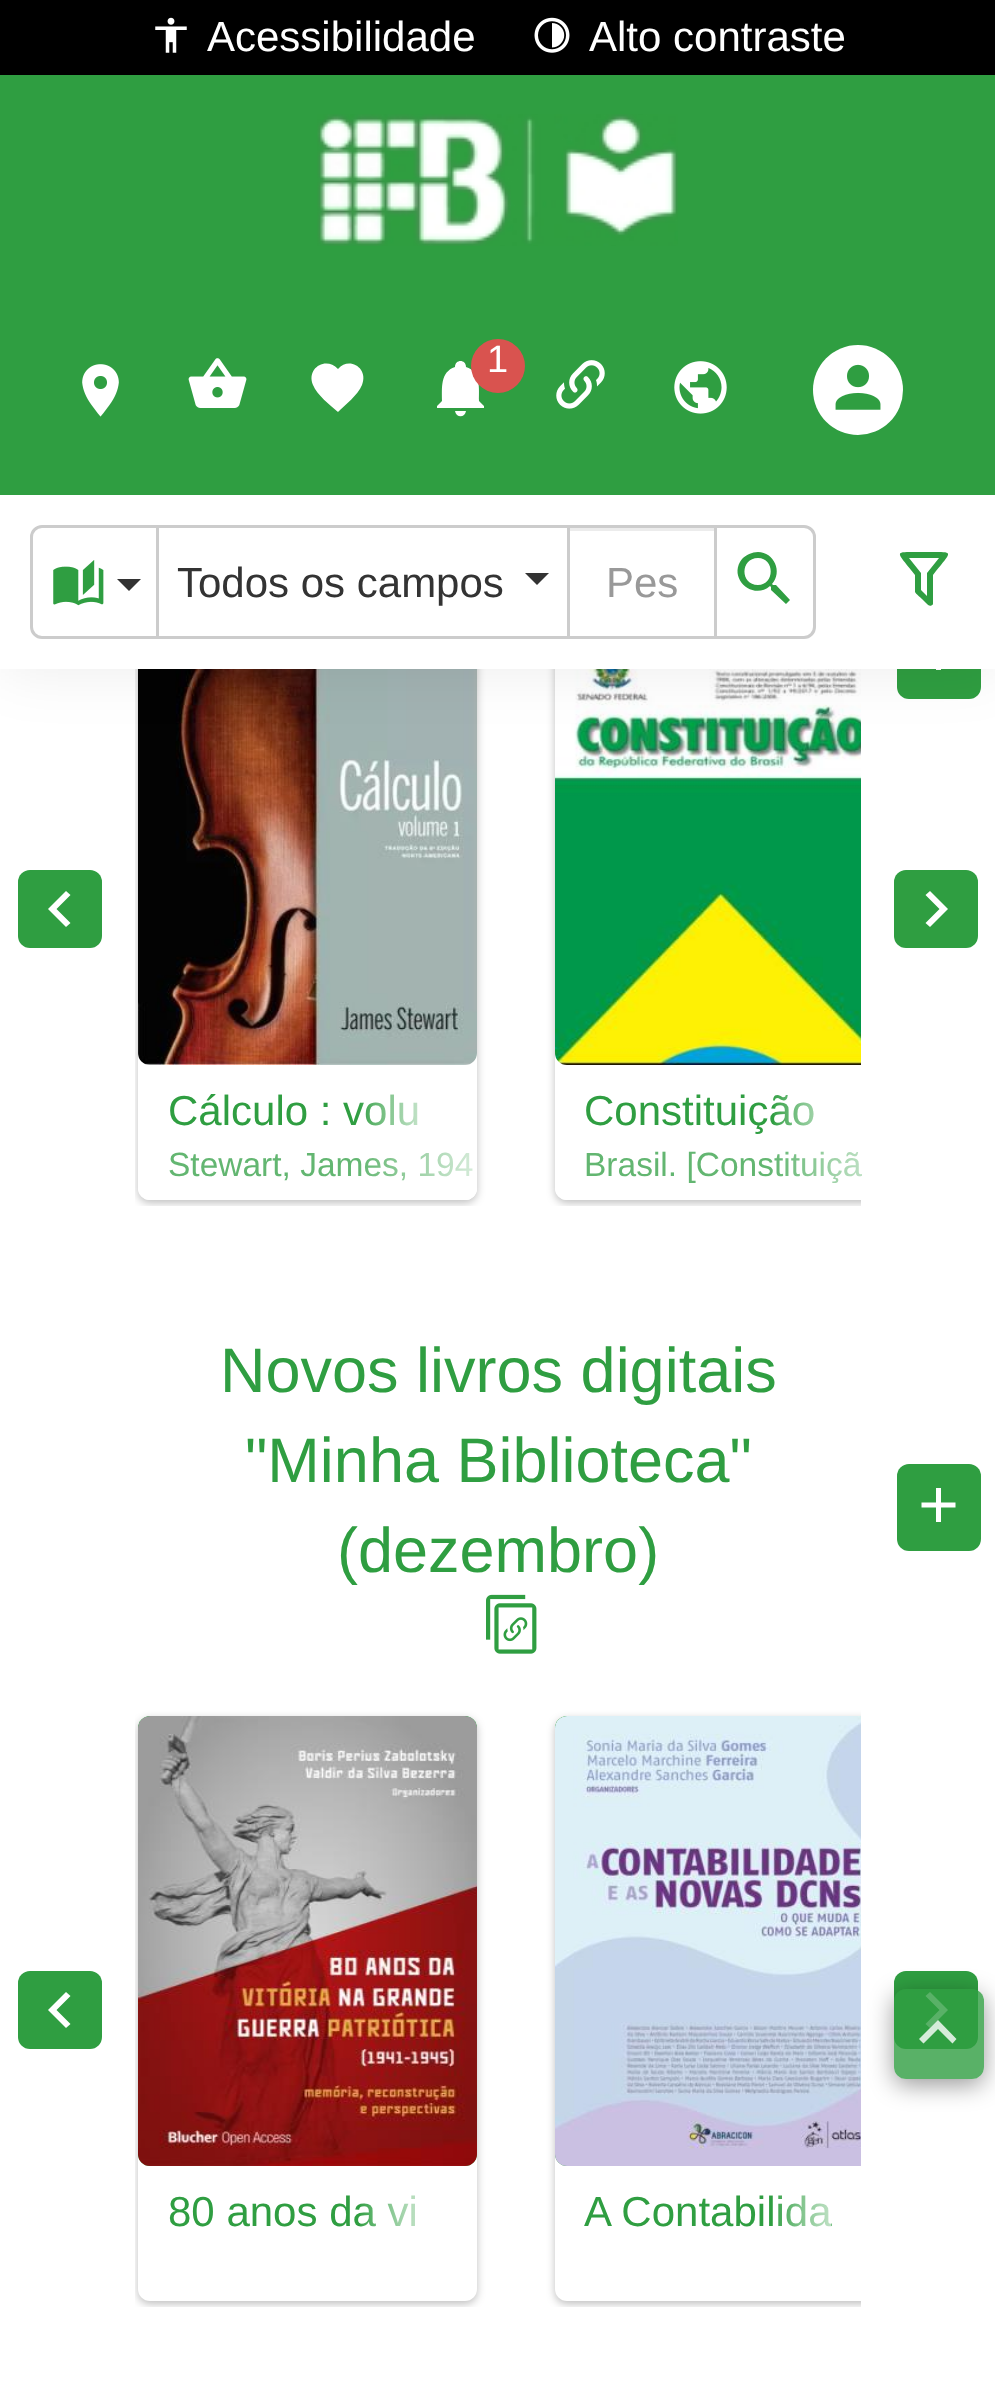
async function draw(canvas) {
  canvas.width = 995
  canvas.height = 2394
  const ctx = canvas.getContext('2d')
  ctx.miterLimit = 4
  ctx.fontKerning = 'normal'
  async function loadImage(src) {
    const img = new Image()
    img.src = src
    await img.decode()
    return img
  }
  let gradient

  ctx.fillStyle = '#fff'
  ctx.fillRect(0, 0, 995, 2394)
  ctx.fillStyle = '#000'
  ctx.fillRect(0, 0, 995, 75)
  ctx.drawImage(await loadImage('image0.png'), 155, 17, 32, 36)
  ctx.font = '42px Liberation Sans'
  ctx.fillStyle = '#fff'
  ctx.fillText('Acessibilidade', 207, 51)
  ctx.drawImage(await loadImage('image1.png'), 534, 17, 36, 36)
  ctx.fillText('Alto contraste', 589, 51)
  ctx.fillStyle = '#2f9e41'
  ctx.beginPath()
  ctx.roundRect(897, 612, 84, 87, 12)
  ctx.fill()
  ctx.fillStyle = '#fff'
  ctx.beginPath()
  ctx.moveTo(955.5, 655.5)
  ctx.lineTo(941, 655.5)
  ctx.lineTo(941, 670)
  ctx.lineTo(936, 670)
  ctx.lineTo(936, 655.5)
  ctx.lineTo(921.5, 655.5)
  ctx.lineTo(921.5, 650.5)
  ctx.lineTo(936, 650.5)
  ctx.lineTo(936, 636)
  ctx.lineTo(941, 636)
  ctx.lineTo(941, 650.5)
  ctx.lineTo(955.5, 650.5)
  ctx.closePath()
  ctx.fill()
  ctx.save()
  ctx.beginPath()
  ctx.rect(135, 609, 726, 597)
  ctx.clip()
  ctx.fillStyle = '#00000040'
  ctx.filter = 'blur(4.5px)'
  ctx.beginPath()
  ctx.roundRect(138, 618, 339, 585, 12)
  ctx.fill()
  ctx.filter = 'none'
  ctx.restore()
  ctx.beginPath()
  ctx.roundRect(138, 615, 339, 585, 12)
  ctx.fill()
  ctx.drawImage(await loadImage('image9.png'), 138, 669, 339, 396)
  ctx.save()
  ctx.beginPath()
  ctx.rect(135, 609, 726, 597)
  ctx.clip()
  ctx.fillStyle = '#00000040'
  ctx.filter = 'blur(4.5px)'
  ctx.beginPath()
  ctx.roundRect(555, 618, 336, 585, 12)
  ctx.fill()
  ctx.filter = 'none'
  ctx.restore()
  ctx.beginPath()
  ctx.roundRect(555, 615, 306, 585, [12, 0, 0, 12])
  ctx.fill()
  ctx.drawImage(await loadImage('image10.png'), 555, 669, 306, 396)
  ctx.fillStyle = '#00000014'
  ctx.filter = 'blur(30px)'
  ctx.beginPath()
  ctx.rect(3, 495, 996, 174)
  ctx.fill()
  ctx.filter = 'none'
  ctx.fillStyle = '#2f9e41'
  ctx.fillRect(0, 75, 995, 420)
  ctx.drawImage(await loadImage('image2.png'), 317, 114, 361, 132)
  ctx.drawImage(await loadImage('image3.png'), 82, 364, 37, 53)
  ctx.drawImage(await loadImage('image4.png'), 188, 358, 59, 50)
  ctx.fillStyle = '#fff'
  ctx.beginPath()
  ctx.moveTo(338, 412)
  ctx.bezierCurveTo(330, 405, 317, 395, 313, 385)
  ctx.bezierCurveTo(306, 368, 326, 356, 338, 369)
  ctx.bezierCurveTo(349, 356, 369, 368, 362, 385)
  ctx.bezierCurveTo(358, 395, 345, 405, 338, 412)
  ctx.closePath()
  ctx.fill()
  ctx.beginPath()
  ctx.moveTo(484, 406)
  ctx.lineTo(484, 408)
  ctx.lineTo(437, 408)
  ctx.lineTo(437, 406)
  ctx.lineTo(442, 401)
  ctx.bezierCurveTo(442, 388, 440, 372, 455, 367)
  ctx.bezierCurveTo(455, 359, 466, 359, 466, 367)
  ctx.bezierCurveTo(481, 372, 479, 388, 479, 401)
  ctx.closePath()
  ctx.moveTo(466, 411)
  ctx.bezierCurveTo(465, 418, 456, 418, 455, 411)
  ctx.closePath()
  ctx.fill()
  ctx.fillStyle = '#d9534f'
  ctx.beginPath()
  ctx.arc(498, 366, 27, 0, 2 * Math.PI)
  ctx.fill()
  ctx.font = '38px Liberation Sans'
  ctx.fillStyle = '#fff'
  ctx.fillText('1', 487, 372)
  ctx.drawImage(await loadImage('image5.png'), 556, 360, 49, 49)
  ctx.drawImage(await loadImage('image6.png'), 674, 361, 53, 53)
  ctx.beginPath()
  ctx.arc(858, 390, 45, 0, 2 * Math.PI)
  ctx.fill()
  ctx.drawImage(await loadImage('image7.png'), 835, 364, 46, 46)
  ctx.fillRect(0, 495, 995, 174)
  ctx.beginPath()
  ctx.roundRect(31.5, 526.5, 129, 111, [10.5, 0, 0, 10.5])
  ctx.strokeStyle = '#ccc'
  ctx.lineWidth = 3
  ctx.stroke()
  ctx.drawImage(await loadImage('image8.png'), 53, 560, 51, 46)
  ctx.fillStyle = '#333'
  ctx.beginPath()
  ctx.moveTo(117, 579)
  ctx.lineTo(141, 579)
  ctx.lineTo(129, 591)
  ctx.closePath()
  ctx.fill()
  ctx.fillStyle = '#fff'
  ctx.fillRect(159, 528, 3, 108)
  ctx.strokeRect(157.5, 526.5, 411, 111)
  ctx.font = '42px Liberation Sans'
  ctx.fillStyle = '#333'
  ctx.fillText('Todos os campos', 177, 597)
  ctx.beginPath()
  ctx.moveTo(525, 573)
  ctx.lineTo(549, 573)
  ctx.lineTo(537, 585)
  ctx.closePath()
  ctx.fill()
  ctx.fillStyle = '#ececec'
  ctx.fillRect(570, 528, 147, 3)
  ctx.fillStyle = '#ccc'
  ctx.fillRect(570, 525, 150, 3)
  ctx.fillRect(570, 636, 150, 3)
  ctx.fillStyle = '#999'
  ctx.fillText('Pes', 606, 597)
  ctx.fillStyle = '#fff'
  ctx.beginPath()
  ctx.roundRect(715.5, 526.5, 99, 111, [0, 10.5, 10.5, 0])
  ctx.fill()
  ctx.stroke()
  ctx.fillStyle = '#2f9e41'
  ctx.beginPath()
  ctx.moveTo(758, 552)
  ctx.bezierCurveTo(774, 552, 783, 572, 772, 584)
  ctx.lineTo(773, 585)
  ctx.lineTo(776, 585)
  ctx.lineTo(790, 600)
  ctx.lineTo(786, 604)
  ctx.lineTo(771, 590)
  ctx.lineTo(771, 587)
  ctx.lineTo(770, 586)
  ctx.bezierCurveTo(753, 601, 727, 578, 742, 559)
  ctx.bezierCurveTo(746, 555, 752, 552, 758, 552)
  ctx.closePath()
  ctx.moveTo(758, 558)
  ctx.bezierCurveTo(740, 558, 740, 585, 758, 585)
  ctx.bezierCurveTo(775, 585, 775, 558, 758, 558)
  ctx.closePath()
  ctx.fill()
  ctx.beginPath()
  ctx.moveTo(933, 603)
  ctx.bezierCurveTo(933, 604, 933, 605, 932, 605)
  ctx.bezierCurveTo(930, 607, 928, 605, 926, 603)
  ctx.lineTo(922, 599)
  ctx.bezierCurveTo(920, 597, 916, 594, 915, 592)
  ctx.lineTo(915, 575)
  ctx.bezierCurveTo(895, 549, 892, 552, 924, 552)
  ctx.bezierCurveTo(956, 552, 953, 549, 933, 575)
  ctx.closePath()
  ctx.moveTo(909, 558)
  ctx.lineTo(921, 573)
  ctx.lineTo(921, 590)
  ctx.lineTo(927, 596)
  ctx.lineTo(927, 573)
  ctx.lineTo(939, 558)
  ctx.closePath()
  ctx.fill()
  ctx.beginPath()
  ctx.roundRect(18, 870, 84, 78, 12)
  ctx.fill()
  ctx.fillStyle = '#fff'
  ctx.beginPath()
  ctx.moveTo(70.5, 923)
  ctx.lineTo(56.5, 909)
  ctx.lineTo(70.5, 895)
  ctx.lineTo(66, 891)
  ctx.lineTo(48, 909)
  ctx.lineTo(66, 927)
  ctx.closePath()
  ctx.fill()
  ctx.fillStyle = '#2f9e41'
  ctx.beginPath()
  ctx.roundRect(894, 870, 84, 78, 12)
  ctx.fill()
  ctx.fillStyle = '#fff'
  ctx.beginPath()
  ctx.moveTo(925.5, 923)
  ctx.lineTo(939.5, 909)
  ctx.lineTo(925.5, 895)
  ctx.lineTo(930, 891)
  ctx.lineTo(948, 909)
  ctx.lineTo(930, 927)
  ctx.closePath()
  ctx.fill()
  ctx.beginPath()
  ctx.roundRect(138, 1065, 339, 135, [0, 0, 12, 12])
  ctx.fill()
  ctx.fillStyle = '#2f9e41'
  ctx.fillText('Cálculo : volu', 168, 1125)
  gradient = ctx.createLinearGradient(357, 1065, 477, 1065)
  gradient.addColorStop(0, '#ffffff00')
  gradient.addColorStop(1, '#fff')
  ctx.fillStyle = gradient
  ctx.beginPath()
  ctx.roundRect(357, 1065, 120, 135, [0, 0, 12, 0])
  ctx.fill()
  ctx.font = '33.5px Liberation Sans'
  ctx.fillStyle = '#63b671'
  ctx.fillText('Stewart, James, 194', 168, 1176)
  gradient = ctx.createLinearGradient(357, 1065, 477, 1065)
  gradient.addColorStop(0, '#ffffff00')
  gradient.addColorStop(1, '#ffffffbf')
  ctx.fillStyle = gradient
  ctx.beginPath()
  ctx.roundRect(357, 1065, 120, 135, [0, 0, 12, 0])
  ctx.fill()
  ctx.fillStyle = '#fff'
  ctx.beginPath()
  ctx.roundRect(555, 1065, 306, 135, [0, 0, 0, 12])
  ctx.fill()
  ctx.font = '42px Liberation Sans'
  ctx.fillStyle = '#2f9e41'
  ctx.fillText('Constituição', 584, 1125)
  gradient = ctx.createLinearGradient(771, 1065, 891, 1065)
  gradient.addColorStop(0, '#ffffff00')
  gradient.addColorStop(1, '#fff')
  ctx.fillStyle = gradient
  ctx.fillRect(774, 1094, 39, 32)
  ctx.font = '33.5px Liberation Sans'
  ctx.fillStyle = '#63b671'
  ctx.fillText('Brasil. [Constituiçã', 584, 1176)
  gradient = ctx.createLinearGradient(771, 1065, 891, 1065)
  gradient.addColorStop(0, '#ffffff00')
  gradient.addColorStop(1, '#ffffffbf')
  ctx.fillStyle = gradient
  ctx.fillRect(774, 1095, 87, 89)
  ctx.font = '63px Liberation Sans'
  ctx.fillStyle = '#2f9e41'
  ctx.fillText('Novos livros digitais', 220, 1392)
  ctx.fillText('"Minha Biblioteca"', 245, 1482)
  ctx.fillText('(dezembro)', 337, 1572)
  ctx.beginPath()
  ctx.roundRect(897, 1464, 84, 87, 12)
  ctx.fill()
  ctx.fillStyle = '#fff'
  ctx.beginPath()
  ctx.moveTo(955.5, 1507.5)
  ctx.lineTo(941, 1507.5)
  ctx.lineTo(941, 1522)
  ctx.lineTo(936, 1522)
  ctx.lineTo(936, 1507.5)
  ctx.lineTo(921.5, 1507.5)
  ctx.lineTo(921.5, 1502.5)
  ctx.lineTo(936, 1502.5)
  ctx.lineTo(936, 1488)
  ctx.lineTo(941, 1488)
  ctx.lineTo(941, 1502.5)
  ctx.lineTo(955.5, 1502.5)
  ctx.closePath()
  ctx.fill()
  ctx.drawImage(await loadImage('image11.png'), 486, 1594, 51, 60)
  ctx.fillStyle = '#2f9e41'
  ctx.beginPath()
  ctx.roundRect(18, 1971, 84, 78, 12)
  ctx.fill()
  ctx.fillStyle = '#fff'
  ctx.beginPath()
  ctx.moveTo(70.5, 2024)
  ctx.lineTo(56.5, 2010)
  ctx.lineTo(70.5, 1996)
  ctx.lineTo(66, 1992)
  ctx.lineTo(48, 2010)
  ctx.lineTo(66, 2028)
  ctx.closePath()
  ctx.fill()
  ctx.save()
  ctx.beginPath()
  ctx.rect(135, 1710, 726, 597)
  ctx.clip()
  ctx.fillStyle = '#00000040'
  ctx.filter = 'blur(4.5px)'
  ctx.beginPath()
  ctx.roundRect(555, 1719, 336, 585, 12)
  ctx.fill()
  ctx.filter = 'none'
  ctx.restore()
  ctx.fillStyle = '#2f9e41'
  ctx.beginPath()
  ctx.roundRect(894, 1971, 84, 78, 12)
  ctx.fill()
  ctx.fillStyle = '#fff'
  ctx.beginPath()
  ctx.moveTo(925.5, 2024)
  ctx.lineTo(939.5, 2010)
  ctx.lineTo(925.5, 1996)
  ctx.lineTo(930, 1992)
  ctx.lineTo(948, 2010)
  ctx.lineTo(930, 2028)
  ctx.closePath()
  ctx.fill()
  ctx.save()
  ctx.beginPath()
  ctx.rect(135, 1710, 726, 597)
  ctx.clip()
  ctx.fillStyle = '#00000040'
  ctx.filter = 'blur(4.5px)'
  ctx.beginPath()
  ctx.roundRect(138, 1719, 339, 585, 12)
  ctx.fill()
  ctx.filter = 'none'
  ctx.restore()
  ctx.beginPath()
  ctx.roundRect(138, 1716, 339, 585, 12)
  ctx.fill()
  ctx.fillStyle = '#2f9e41'
  ctx.beginPath()
  ctx.roundRect(138, 1716, 339, 450, 12)
  ctx.fill()
  ctx.drawImage(await loadImage('image12.png'), 138, 1716, 339, 450)
  ctx.font = '42px Liberation Sans'
  ctx.fillText('80 anos da vi', 168, 2226)
  gradient = ctx.createLinearGradient(357, 2166, 477, 2166)
  gradient.addColorStop(0, '#ffffff00')
  gradient.addColorStop(1, '#fff')
  ctx.fillStyle = gradient
  ctx.fillRect(360, 2195, 55, 32)
  gradient = ctx.createLinearGradient(357, 2166, 477, 2166)
  gradient.addColorStop(0, '#ffffff00')
  gradient.addColorStop(1, '#ffffffbf')
  ctx.fillStyle = gradient
  ctx.fillRect(360, 2195, 55, 32)
  ctx.fillStyle = '#fff'
  ctx.beginPath()
  ctx.roundRect(555, 1716, 306, 585, [12, 0, 0, 12])
  ctx.fill()
  ctx.fillStyle = '#2f9e41'
  ctx.beginPath()
  ctx.roundRect(555, 1716, 306, 450, [12, 0, 0, 12])
  ctx.fill()
  ctx.drawImage(await loadImage('image13.png'), 555, 1716, 306, 450)
  ctx.fillText('A Contabilida', 584, 2226)
  gradient = ctx.createLinearGradient(771, 2166, 891, 2166)
  gradient.addColorStop(0, '#ffffff00')
  gradient.addColorStop(1, '#fff')
  ctx.fillStyle = gradient
  ctx.fillRect(777, 2195, 54, 32)
  gradient = ctx.createLinearGradient(771, 2166, 891, 2166)
  gradient.addColorStop(0, '#ffffff00')
  gradient.addColorStop(1, '#ffffffbf')
  ctx.fillStyle = gradient
  ctx.fillRect(778, 2195, 53, 32)
  ctx.save()
  ctx.beginPath()
  ctx.moveTo(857, 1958)
  ctx.lineTo(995, 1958)
  ctx.lineTo(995, 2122)
  ctx.lineTo(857, 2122)
  ctx.closePath()
  ctx.moveTo(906, 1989)
  ctx.lineTo(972, 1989)
  ctx.bezierCurveTo(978.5, 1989, 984, 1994.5, 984, 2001)
  ctx.lineTo(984, 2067)
  ctx.bezierCurveTo(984, 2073.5, 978.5, 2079, 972, 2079)
  ctx.lineTo(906, 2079)
  ctx.bezierCurveTo(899.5, 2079, 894, 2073.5, 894, 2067)
  ctx.lineTo(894, 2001)
  ctx.bezierCurveTo(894, 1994.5, 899.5, 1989, 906, 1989)
  ctx.closePath()
  ctx.clip('evenodd')
  ctx.fillStyle = '#00000066'
  ctx.filter = 'blur(12px)'
  ctx.beginPath()
  ctx.roundRect(894, 1995, 90, 90, 12)
  ctx.fill()
  ctx.filter = 'none'
  ctx.restore()
  ctx.fillStyle = '#2f9e41cc'
  ctx.beginPath()
  ctx.roundRect(894, 1989, 90, 90, 12)
  ctx.fill()
  ctx.fillStyle = '#ffffffcc'
  ctx.beginPath()
  ctx.moveTo(923.5, 2043.5)
  ctx.lineTo(938, 2029)
  ctx.lineTo(952.5, 2043.5)
  ctx.lineTo(956.5, 2039)
  ctx.lineTo(938, 2020)
  ctx.lineTo(919, 2039)
  ctx.closePath()
  ctx.fill()
}

draw(document.querySelector('canvas'))
